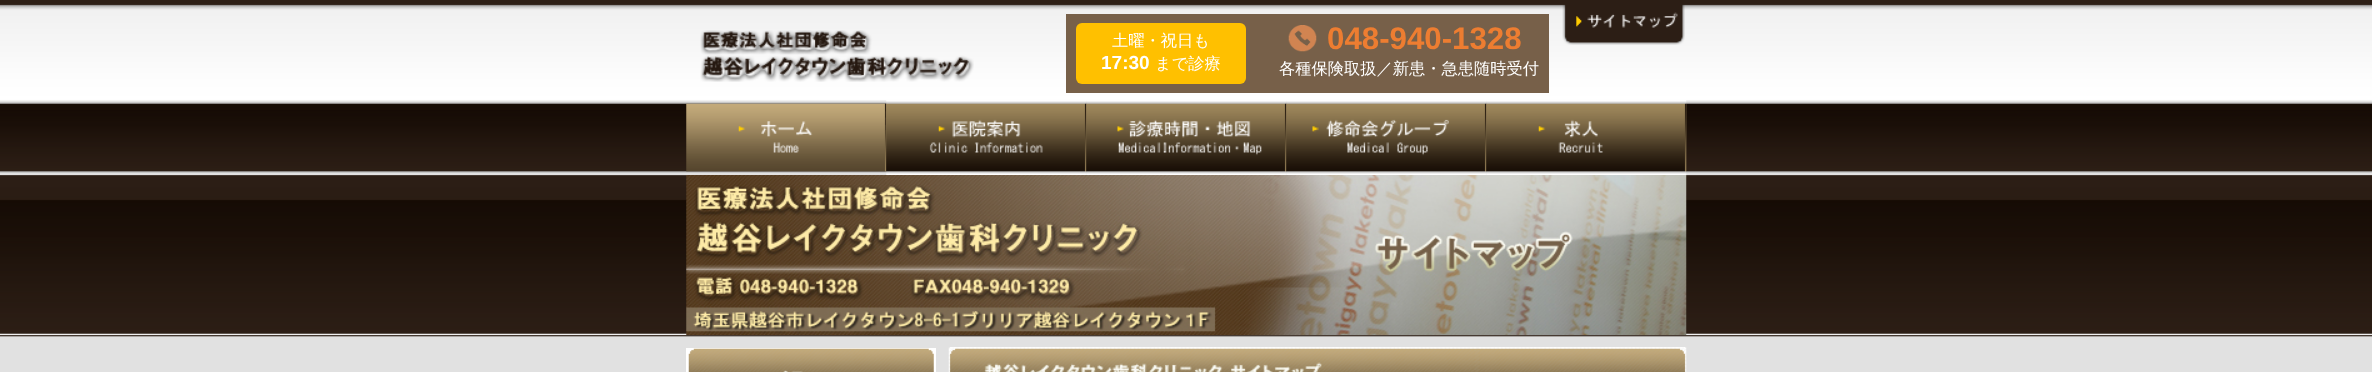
async function draw(canvas) {
  canvas.width = 2372
  canvas.height = 372
  const ctx = canvas.getContext('2d')
  ctx.miterLimit = 4
  ctx.fontKerning = 'normal'
  async function loadImage(src) {
    const img = new Image()
    img.src = src
    await img.decode()
    return img
  }

  ctx.fillStyle = '#e1e1e1'
  ctx.fillRect(0, 0, 2372, 372)
  ctx.drawImage(await loadImage('image0.png'), 0, 0, 2372, 337)
  ctx.drawImage(await loadImage('image1.png'), 700, 30, 274, 52)
  ctx.fillStyle = '#776049'
  ctx.fillRect(1066, 14, 483, 79)
  ctx.fillStyle = '#ffc000'
  ctx.beginPath()
  ctx.roundRect(1076, 23, 170, 61, 6)
  ctx.fill()
  ctx.font = '500 16.25px WenQuanYi Zen Hei'
  ctx.fillStyle = '#fff'
  ctx.fillText('土曜・祝日も', 1112, 46)
  ctx.font = 'bold 19px Liberation Sans'
  ctx.fillText('17:30', 1101, 69)
  ctx.font = '500 16.25px WenQuanYi Zen Hei'
  ctx.fillText('まで診療', 1155, 69)
  ctx.drawImage(await loadImage('image2.png'), 1288, 25, 29, 27)
  ctx.font = 'bold 31.25px Liberation Sans'
  ctx.fillStyle = '#ed7d31'
  ctx.fillText('048-940-1328', 1327, 49)
  ctx.font = '500 16.25px WenQuanYi Zen Hei'
  ctx.fillStyle = '#fff'
  ctx.fillText('各種保険取扱／新患・急患随時受付', 1279, 74)
  ctx.drawImage(await loadImage('image3.png'), 1562, 4, 123, 41)
  ctx.drawImage(await loadImage('image4.png'), 686, 103, 1001, 69)
  ctx.drawImage(await loadImage('image5.png'), 886, 100, 201, 75)
  ctx.drawImage(await loadImage('image6.png'), 1086, 100, 201, 75)
  ctx.drawImage(await loadImage('image7.png'), 1286, 100, 201, 75)
  ctx.drawImage(await loadImage('image8.png'), 1486, 100, 201, 75)
  ctx.drawImage(await loadImage('image9.png'), 686, 175, 1001, 160)
  ctx.fillRect(686, 348, 250, 24)
  ctx.drawImage(await loadImage('image10.png'), 688, 348, 246, 24)
  ctx.fillRect(950, 347, 735, 1)
  ctx.drawImage(await loadImage('image11.png'), 948, 347, 739, 25)
}

draw(document.querySelector('canvas'))
